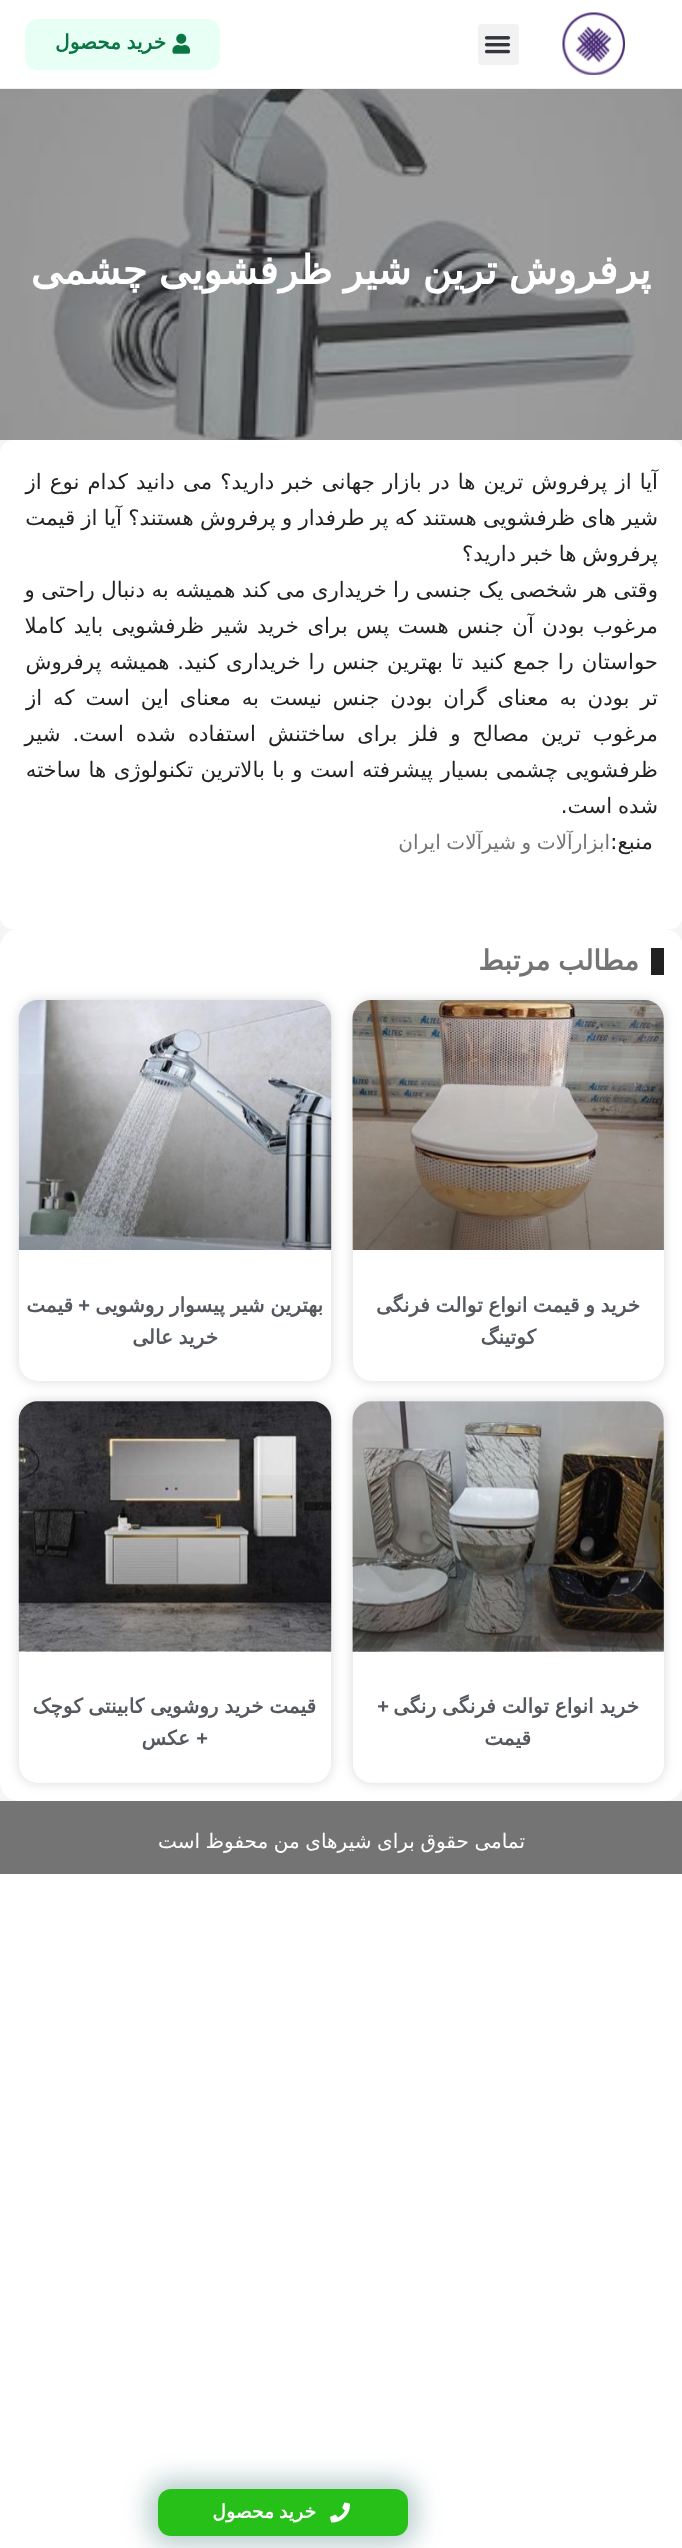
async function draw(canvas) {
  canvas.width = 682
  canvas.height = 2548
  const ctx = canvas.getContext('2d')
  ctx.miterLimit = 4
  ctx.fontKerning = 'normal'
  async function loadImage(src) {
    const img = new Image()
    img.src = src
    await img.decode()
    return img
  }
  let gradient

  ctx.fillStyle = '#fff'
  ctx.fillRect(0, 0, 682, 2548)
  ctx.fillStyle = '#eee'
  ctx.fillRect(0, 88, 682, 1)
  ctx.drawImage(await loadImage('image0.png'), 562, 12, 63, 63)
  ctx.fillStyle = '#f2f2f2'
  ctx.beginPath()
  ctx.roundRect(478, 24, 41, 41, 4)
  ctx.fill()
  ctx.drawImage(await loadImage('image1.png'), 484, 36, 27, 18)
  ctx.fillStyle = '#e7fff4'
  ctx.beginPath()
  ctx.roundRect(25, 19, 195, 51, 13)
  ctx.fill()
  ctx.drawImage(await loadImage('image2.png'), 172, 33, 18, 21)
  ctx.wordSpacing = '-0.75px'
  ctx.direction = 'rtl'
  ctx.font = 'bold 20px DejaVu Sans'
  ctx.fillStyle = '#0c7544'
  ctx.fillText('خرید محصول', 166, 49)
  ctx.drawImage(await loadImage('image3.png'), 0, 89, 682, 351)
  ctx.wordSpacing = '-1.5px'
  ctx.font = 'bold 40px DejaVu Sans'
  ctx.fillStyle = '#fff'
  ctx.fillText('پرفروش ترین شیر ظرفشویی چشمی', 651, 284)
  ctx.fillStyle = '#f5f5f5'
  ctx.fillRect(0, 440, 682, 1361)
  ctx.fillStyle = '#fff'
  ctx.beginPath()
  ctx.roundRect(0, 440, 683, 489, 13)
  ctx.fill()
  ctx.wordSpacing = '1.4px'
  ctx.font = '21.25px DejaVu Sans'
  ctx.fillStyle = '#232323'
  ctx.fillText('آیا از پرفروش ترین ها در بازار جهانی خبر دارید؟ می دانید کدام نوع از', 658, 489)
  ctx.wordSpacing = '-0.5px'
  ctx.fillText('شیر های ظرفشویی هستند که پر طرفدار و پرفروش هستند؟ آیا از قیمت', 658, 525)
  ctx.wordSpacing = '-1px'
  ctx.fillText('پرفروش ها خبر دارید؟', 658, 561)
  ctx.wordSpacing = '-0.25px'
  ctx.fillText('وقتی هر شخصی یک جنسی را خریداری می کند همیشه به دنبال راحتی و', 658, 597)
  ctx.wordSpacing = '1.75px'
  ctx.fillText('مرغوب بودن آن جنس هست پس برای خرید شیر ظرفشویی باید کاملا', 658, 633)
  ctx.wordSpacing = '1.1px'
  ctx.fillText('حواستان را جمع کنید تا بهترین جنس را خریداری کنید. همیشه پرفروش', 658, 669)
  ctx.wordSpacing = '4.1px'
  ctx.fillText('تر بودن به معنای گران بودن جنس نیست به معنای این است که از', 658, 705)
  ctx.wordSpacing = '5.25px'
  ctx.fillText('مرغوب ترین مصالح و فلز برای ساختنش استفاده شده است. شیر', 658, 741)
  ctx.wordSpacing = '0.75px'
  ctx.fillText('ظرفشویی چشمی بسیار پیشرفته است و با بالاترین تکنولوژی ها ساخته', 658, 777)
  ctx.wordSpacing = '-1px'
  ctx.fillText('شده است.', 658, 813)
  ctx.wordSpacing = '0px'
  ctx.fillText('منبع:', 653, 849)
  ctx.wordSpacing = '-0.75px'
  ctx.font = '20px DejaVu Sans'
  ctx.fillStyle = '#757474'
  ctx.fillText('ابزارآلات و شیرآلات ایران', 610, 849)
  ctx.fillStyle = '#044b4d4a'
  ctx.filter = 'blur(13px)'
  ctx.beginPath()
  ctx.roundRect(149, 2480, 267, 65, 21)
  ctx.fill()
  ctx.filter = 'none'
  ctx.fillStyle = '#26c019'
  ctx.beginPath()
  ctx.roundRect(158, 2489, 250, 47, 13)
  ctx.fill()
  ctx.drawImage(await loadImage('image4.png'), 330, 2502, 20, 21)
  ctx.wordSpacing = '-1px'
  ctx.font = 'bold 18.75px DejaVu Sans'
  ctx.fillStyle = '#fff'
  ctx.fillText('خرید محصول', 316, 2518)
  ctx.beginPath()
  ctx.roundRect(0, 929, 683, 872, 19)
  ctx.fill()
  ctx.fillStyle = '#212121'
  ctx.fillRect(651, 948, 13, 27)
  ctx.font = 'bold 27.5px DejaVu Sans'
  ctx.fillStyle = '#757474'
  ctx.fillText('مطالب مرتبط', 639, 970)
  ctx.fillStyle = '#00000026'
  ctx.filter = 'blur(6px)'
  ctx.beginPath()
  ctx.roundRect(353, 1000, 311, 381, 19)
  ctx.fill()
  ctx.filter = 'none'
  ctx.fillStyle = '#fff'
  ctx.beginPath()
  ctx.roundRect(353, 1000, 311, 381, 19)
  ctx.fill()
  ctx.drawImage(await loadImage('image5.png'), 352, 1000, 312, 250)
  gradient = ctx.createLinearGradient(508, 1250, 508, 1000)
  gradient.addColorStop(0, '#00000059')
  gradient.addColorStop(0.75, '#00000000')
  ctx.fillStyle = gradient
  ctx.fillRect(353, 1074, 311, 176)
  ctx.wordSpacing = '-0.75px'
  ctx.font = 'bold 20px DejaVu Sans'
  ctx.fillStyle = '#54595f'
  ctx.fillText('خرید و قیمت انواع توالت فرنگی', 640, 1312)
  ctx.wordSpacing = '0px'
  ctx.fillText('کوتینگ', 536, 1344)
  ctx.fillStyle = '#00000026'
  ctx.filter = 'blur(6px)'
  ctx.beginPath()
  ctx.roundRect(19, 1000, 312, 381, 19)
  ctx.fill()
  ctx.filter = 'none'
  ctx.fillStyle = '#fff'
  ctx.beginPath()
  ctx.roundRect(19, 1000, 312, 381, 19)
  ctx.fill()
  ctx.drawImage(await loadImage('image6.png'), 18, 1000, 314, 250)
  gradient = ctx.createLinearGradient(175, 1250, 175, 1000)
  gradient.addColorStop(0, '#00000059')
  gradient.addColorStop(0.75, '#00000000')
  ctx.fillStyle = gradient
  ctx.fillRect(19, 1074, 312, 176)
  ctx.wordSpacing = '-0.5px'
  ctx.fillStyle = '#54595f'
  ctx.fillText('بهترین شیر پیسوار روشویی', 323, 1312)
  ctx.wordSpacing = '0px'
  ctx.font = 'bold 20px Liberation Sans'
  ctx.fillText('+', 90, 1312)
  ctx.font = 'bold 20px DejaVu Sans'
  ctx.fillText('قیمت', 73, 1312)
  ctx.wordSpacing = '-0.75px'
  ctx.fillText('خرید عالی', 218, 1344)
  ctx.fillStyle = '#00000026'
  ctx.filter = 'blur(6px)'
  ctx.beginPath()
  ctx.roundRect(353, 1401, 311, 382, 19)
  ctx.fill()
  ctx.filter = 'none'
  ctx.fillStyle = '#fff'
  ctx.beginPath()
  ctx.roundRect(353, 1401, 311, 382, 19)
  ctx.fill()
  ctx.drawImage(await loadImage('image7.png'), 352, 1401, 312, 251)
  gradient = ctx.createLinearGradient(508, 1651, 508, 1401)
  gradient.addColorStop(0, '#00000059')
  gradient.addColorStop(0.75, '#00000000')
  ctx.fillStyle = gradient
  ctx.fillRect(353, 1475, 311, 176)
  ctx.wordSpacing = '-0.5px'
  ctx.fillStyle = '#54595f'
  ctx.fillText('خرید انواع توالت فرنگی رنگی', 639, 1713)
  ctx.wordSpacing = '0px'
  ctx.font = 'bold 20px Liberation Sans'
  ctx.fillText('+', 389, 1713)
  ctx.font = 'bold 20px DejaVu Sans'
  ctx.fillText('قیمت', 531, 1745)
  ctx.fillStyle = '#00000026'
  ctx.filter = 'blur(6px)'
  ctx.beginPath()
  ctx.roundRect(19, 1401, 312, 382, 19)
  ctx.fill()
  ctx.filter = 'none'
  ctx.fillStyle = '#fff'
  ctx.beginPath()
  ctx.roundRect(19, 1401, 312, 382, 19)
  ctx.fill()
  ctx.drawImage(await loadImage('image8.png'), 18, 1401, 314, 251)
  gradient = ctx.createLinearGradient(175, 1651, 175, 1401)
  gradient.addColorStop(0, '#00000059')
  gradient.addColorStop(0.75, '#00000000')
  ctx.fillStyle = gradient
  ctx.fillRect(19, 1475, 312, 176)
  ctx.wordSpacing = '-0.75px'
  ctx.fillStyle = '#54595f'
  ctx.fillText('قیمت خرید روشویی کابینتی کوچک', 316, 1713)
  ctx.wordSpacing = '0px'
  ctx.font = 'bold 20px Liberation Sans'
  ctx.fillText('+', 208, 1745)
  ctx.font = 'bold 20px DejaVu Sans'
  ctx.fillText('عکس', 190, 1745)
  ctx.fillStyle = '#757474'
  ctx.fillRect(0, 1801, 682, 73)
  ctx.wordSpacing = '-0.75px'
  ctx.font = '20px DejaVu Sans'
  ctx.fillStyle = '#fff'
  ctx.fillText('تمامی حقوق برای شیرهای من محفوظ است', 525, 1848)
}

draw(document.querySelector('canvas'))
